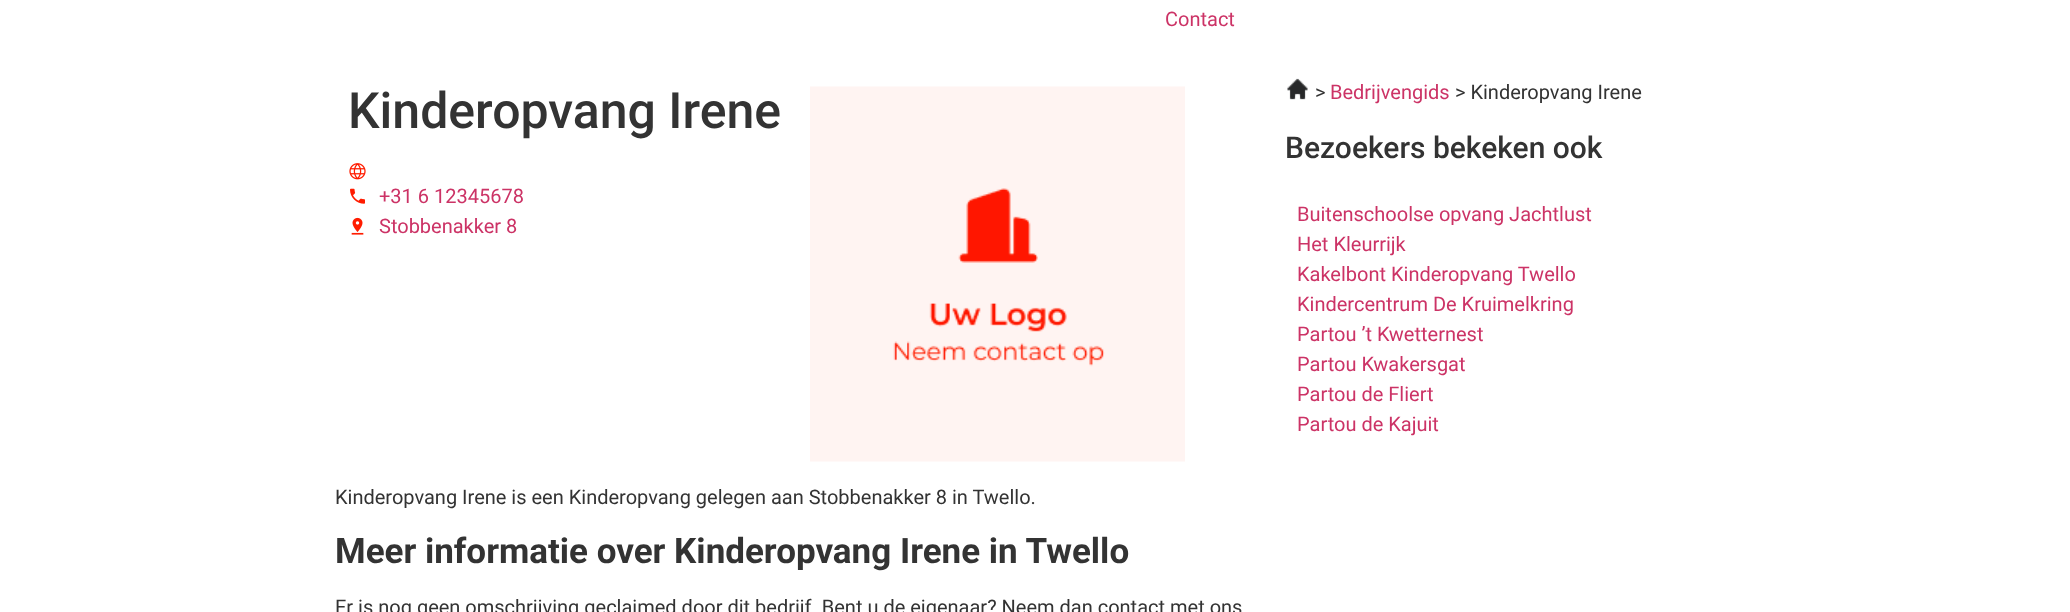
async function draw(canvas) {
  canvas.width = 2070
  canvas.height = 612
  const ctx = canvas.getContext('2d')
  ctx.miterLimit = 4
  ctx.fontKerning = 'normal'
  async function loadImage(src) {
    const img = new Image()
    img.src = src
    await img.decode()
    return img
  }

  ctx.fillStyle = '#fff'
  ctx.fillRect(0, 0, 2070, 612)
  ctx.font = '20px Roboto'
  ctx.fillStyle = '#c36'
  ctx.fillText('Contact', 1165, 26)
  ctx.font = '500 50px Roboto'
  ctx.fillStyle = '#333'
  ctx.fillText('Kinderopvang Irene', 348, 128)
  ctx.drawImage(await loadImage('image0.png'), 349, 163, 17, 17)
  ctx.drawImage(await loadImage('image1.png'), 350, 188, 15, 16)
  ctx.font = '20px Roboto'
  ctx.fillStyle = '#c36'
  ctx.fillText('+31 6 12345678', 379, 203)
  ctx.drawImage(await loadImage('image2.png'), 351, 217, 13, 18)
  ctx.fillText('Stobbenakker 8', 379, 233)
  ctx.drawImage(await loadImage('image3.png'), 810, 86, 375, 376)
  ctx.fillStyle = '#333'
  ctx.fillText('Kinderopvang Irene is een Kinderopvang gelegen aan Stobbenakker 8 in Twello.', 335, 504)
  ctx.font = 'bold 35px Roboto'
  ctx.fillText('Meer informatie over Kinderopvang Irene in Twello', 335, 563)
  ctx.font = '20px Roboto'
  ctx.fillText('Er is nog geen omschrijving geclaimed door dit bedrijf. Bent u de eigenaar? Neem dan contact met ons', 335, 614)
  ctx.drawImage(await loadImage('image4.png'), 1287, 78, 21, 22)
  ctx.fillText('>', 1315, 99)
  ctx.fillStyle = '#c36'
  ctx.fillText('Bedrijvengids', 1330, 99)
  ctx.fillStyle = '#333'
  ctx.fillText('> Kinderopvang Irene', 1455, 99)
  ctx.font = '500 30px Roboto'
  ctx.fillText('Bezoekers bekeken ook', 1285, 158)
  ctx.font = '20px Roboto'
  ctx.fillStyle = '#c36'
  ctx.fillText('Buitenschoolse opvang Jachtlust', 1297, 221)
  ctx.fillText('Het Kleurrijk', 1297, 251)
  ctx.fillText('Kakelbont Kinderopvang Twello', 1297, 281)
  ctx.fillText('Kindercentrum De Kruimelkring', 1297, 311)
  ctx.fillText('Partou ’t Kwetternest', 1297, 341)
  ctx.fillText('Partou Kwakersgat', 1297, 371)
  ctx.fillText('Partou de Fliert', 1297, 401)
  ctx.fillText('Partou de Kajuit', 1297, 431)
}

draw(document.querySelector('canvas'))
